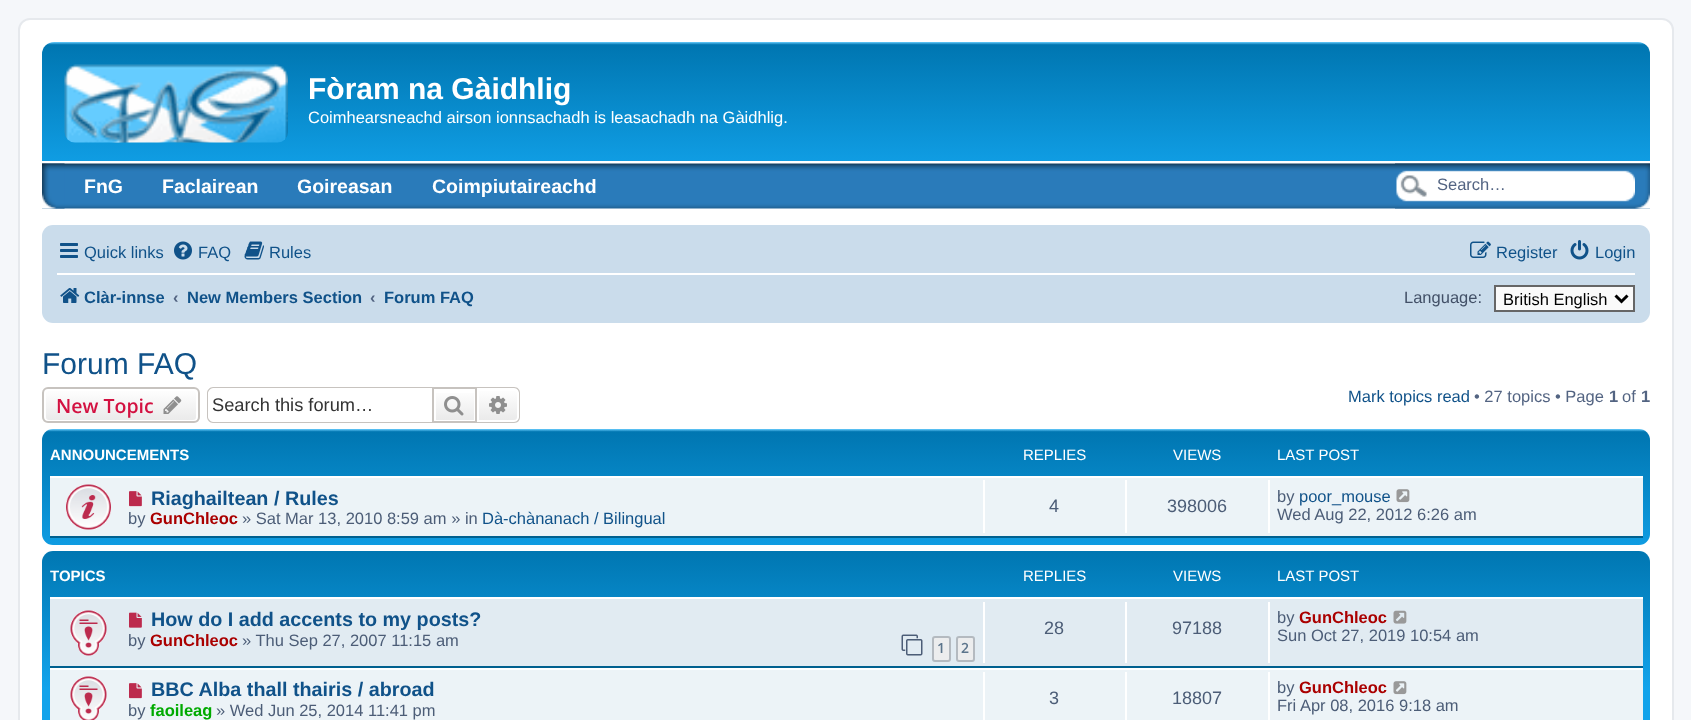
async function draw(canvas) {
  canvas.width = 1691
  canvas.height = 720
  const ctx = canvas.getContext('2d')
  ctx.miterLimit = 4
  ctx.fontKerning = 'normal'
  async function loadImage(src) {
    const img = new Image()
    img.src = src
    await img.decode()
    return img
  }
  let gradient

  ctx.fillStyle = '#f5f7fa'
  ctx.fillRect(0, 0, 1691, 720)
  ctx.fillStyle = '#fff'
  ctx.beginPath()
  ctx.roundRect(19, 19, 1654, 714, 11)
  ctx.fill()
  ctx.strokeStyle = '#e6e9ed'
  ctx.lineWidth = 2
  ctx.stroke()
  gradient = ctx.createLinearGradient(846, 42, 846, 180)
  gradient.addColorStop(0, '#6aceff')
  gradient.addColorStop(0.02, '#0076b1')
  gradient.addColorStop(1, '#12a3eb')
  ctx.fillStyle = gradient
  ctx.beginPath()
  ctx.roundRect(42, 42, 1608, 119, [12, 12, 0, 0])
  ctx.fill()
  ctx.drawImage(await loadImage('image0.png'), 64, 64, 224, 79)
  ctx.font = 'bold 30px Liberation Sans'
  ctx.fillStyle = '#fff'
  ctx.fillText('Fòram na Gàidhlig', 308, 99)
  ctx.font = '16.5px Liberation Sans'
  ctx.fillText('Coimhearsneachd airson ionnsachadh is leasachadh na Gàidhlig.', 308, 123)
  ctx.drawImage(await loadImage('image1.png'), 42, 163, 1608, 46)
  ctx.drawImage(await loadImage('image2.png'), 42, 163, 23, 46)
  ctx.font = 'bold 19.5px Liberation Sans'
  ctx.fillText('FnG', 84, 193)
  ctx.fillText('Faclairean', 162, 193)
  ctx.fillText('Goireasan', 297, 193)
  ctx.fillText('Coimpiutaireachd', 432, 193)
  ctx.drawImage(await loadImage('image3.png'), 1395, 163, 240, 46)
  ctx.font = '16.5px Liberation Sans'
  ctx.fillStyle = '#536482'
  ctx.fillText('Search…', 1437, 190)
  ctx.drawImage(await loadImage('image4.png'), 1635, 163, 15, 46)
  ctx.fillStyle = '#cadceb'
  ctx.beginPath()
  ctx.roundRect(42, 225, 1608, 98, 11)
  ctx.fill()
  ctx.drawImage(await loadImage('image5.png'), 60, 243, 18, 15)
  ctx.fillStyle = '#105289'
  ctx.fillText('Quick links', 84, 258)
  ctx.drawImage(await loadImage('image6.png'), 174, 241, 18, 19)
  ctx.fillText('FAQ', 198, 258)
  ctx.drawImage(await loadImage('image7.png'), 244, 241, 20, 19)
  ctx.fillText('Rules', 269, 258)
  ctx.drawImage(await loadImage('image8.png'), 1470, 241, 21, 17)
  ctx.fillText('Register', 1496, 258)
  ctx.drawImage(await loadImage('image9.png'), 1570, 240, 19, 20)
  ctx.fillText('Login', 1595, 258)
  ctx.fillStyle = '#fff'
  ctx.fillRect(57, 273, 1578, 2)
  ctx.drawImage(await loadImage('image10.png'), 60, 288, 20, 15)
  ctx.font = 'bold 16.5px Liberation Sans'
  ctx.fillStyle = '#105289'
  ctx.fillText('Clàr-innse', 84, 303)
  ctx.fillStyle = '#536482'
  ctx.fillText('‹', 173, 303)
  ctx.fillStyle = '#105289'
  ctx.fillText('New Members Section', 187, 303)
  ctx.fillStyle = '#536482'
  ctx.fillText('‹', 370, 303)
  ctx.fillStyle = '#105289'
  ctx.fillText('Forum FAQ', 384, 303)
  ctx.font = '16.5px Liberation Sans'
  ctx.fillStyle = '#425067'
  ctx.fillText('Language:', 1404, 303)
  ctx.fillStyle = '#fafafa'
  ctx.beginPath()
  ctx.rect(1495, 286, 139, 25)
  ctx.fill()
  ctx.strokeStyle = '#666'
  ctx.stroke()
  ctx.beginPath()
  ctx.moveTo(1615.5, 295.5)
  ctx.lineTo(1621.5, 301.5)
  ctx.lineTo(1627.5, 295.5)
  ctx.strokeStyle = '#000'
  ctx.lineWidth = 3
  ctx.stroke()
  ctx.fillStyle = '#000'
  ctx.fillText('British English', 1503, 305)
  ctx.font = '30px Liberation Sans'
  ctx.fillStyle = '#105289'
  ctx.fillText('Forum FAQ', 42, 374)
  ctx.save()
  ctx.beginPath()
  ctx.roundRect(42, 387, 158, 36, 6)
  ctx.clip()
  gradient = ctx.createLinearGradient(121, 389, 121, 422)
  gradient.addColorStop(0, '#fff')
  gradient.addColorStop(1, '#e9e9e9')
  ctx.fillStyle = gradient
  ctx.fillRect(42, 389, 158, 33)
  ctx.restore()
  ctx.beginPath()
  ctx.roundRect(45, 390, 152, 31, 4)
  ctx.strokeStyle = '#fff'
  ctx.lineWidth = 2
  ctx.stroke()
  ctx.beginPath()
  ctx.roundRect(43, 388, 156, 34, 5)
  ctx.strokeStyle = '#c7c3bf'
  ctx.stroke()
  ctx.font = '600 19.5px Open Sans'
  ctx.fillStyle = '#d31141'
  ctx.fillText('New Topic', 56, 413)
  ctx.drawImage(await loadImage('image11.png'), 163, 396, 19, 18)
  ctx.fillStyle = '#c7c3bf'
  ctx.beginPath()
  ctx.moveTo(213, 387)
  ctx.lineTo(432, 387)
  ctx.lineTo(432, 423)
  ctx.lineTo(213, 423)
  ctx.bezierCurveTo(210, 423, 207, 420, 207, 417)
  ctx.lineTo(207, 393)
  ctx.bezierCurveTo(207, 390, 210, 387, 213, 387)
  ctx.closePath()
  ctx.moveTo(213, 388)
  ctx.lineTo(432, 388)
  ctx.lineTo(432, 422)
  ctx.lineTo(213, 422)
  ctx.bezierCurveTo(211, 422, 208, 419, 208, 417)
  ctx.lineTo(208, 393)
  ctx.bezierCurveTo(208, 391, 211, 388, 213, 388)
  ctx.closePath()
  ctx.fill('evenodd')
  ctx.font = '18.25px Liberation Sans'
  ctx.fillStyle = '#333'
  ctx.fillText('Search this forum…', 212, 411)
  gradient = ctx.createLinearGradient(455, 389, 455, 422)
  gradient.addColorStop(0, '#fff')
  gradient.addColorStop(1, '#e9e9e9')
  ctx.fillStyle = gradient
  ctx.fillRect(436, 393, 38, 27)
  ctx.strokeRect(433, 388, 43, 34)
  ctx.drawImage(await loadImage('image12.png'), 444, 396, 20, 20)
  gradient = ctx.createLinearGradient(498, 389, 498, 422)
  gradient.addColorStop(0, '#fff')
  gradient.addColorStop(1, '#e9e9e9')
  ctx.fillStyle = gradient
  ctx.beginPath()
  ctx.roundRect(478, 390, 40, 31, [0, 4, 4, 0])
  ctx.fill()
  ctx.strokeStyle = '#fff'
  ctx.stroke()
  ctx.fillStyle = '#c7c3bf'
  ctx.beginPath()
  ctx.moveTo(477, 387)
  ctx.lineTo(514, 387)
  ctx.bezierCurveTo(518, 387, 520, 390, 520, 393)
  ctx.lineTo(520, 417)
  ctx.bezierCurveTo(520, 420, 518, 423, 514, 423)
  ctx.lineTo(477, 423)
  ctx.closePath()
  ctx.moveTo(477, 388)
  ctx.lineTo(514, 388)
  ctx.bezierCurveTo(517, 388, 519, 391, 519, 393)
  ctx.lineTo(519, 417)
  ctx.bezierCurveTo(519, 419, 517, 422, 514, 422)
  ctx.lineTo(477, 422)
  ctx.closePath()
  ctx.fill('evenodd')
  ctx.drawImage(await loadImage('image13.png'), 489, 396, 18, 18)
  ctx.font = '16.5px Liberation Sans'
  ctx.fillStyle = '#105289'
  ctx.fillText('Mark topics read', 1348, 402)
  ctx.fillStyle = '#536482'
  ctx.fillText('• 27 topics • Page', 1474, 402)
  ctx.font = 'bold 16.5px Liberation Sans'
  ctx.fillText('1', 1609, 402)
  ctx.font = '16.5px Liberation Sans'
  ctx.fillText('of', 1622, 402)
  ctx.font = 'bold 16.5px Liberation Sans'
  ctx.fillText('1', 1641, 402)
  gradient = ctx.createLinearGradient(846, 429, 846, 567)
  gradient.addColorStop(0, '#6aceff')
  gradient.addColorStop(0.02, '#0076b1')
  gradient.addColorStop(1, '#12a3eb')
  ctx.fillStyle = gradient
  ctx.beginPath()
  ctx.roundRect(42, 429, 1608, 116, 11)
  ctx.fill()
  ctx.font = 'bold 15px Liberation Sans'
  ctx.fillStyle = '#fff'
  ctx.fillText('ANNOUNCEMENTS', 50, 460)
  ctx.font = '15px Liberation Sans'
  ctx.fillText('REPLIES', 1023, 460)
  ctx.fillText('VIEWS', 1173, 460)
  ctx.fillText('LAST POST', 1277, 460)
  ctx.fillStyle = '#ecf3f7'
  ctx.fillRect(50, 478, 1593, 58)
  ctx.fillStyle = '#fff'
  ctx.fillRect(50, 476, 1593, 2)
  ctx.fillStyle = '#00608f'
  ctx.fillRect(50, 536, 1593, 2)
  ctx.drawImage(await loadImage('image14.png'), 66, 484, 45, 46)
  ctx.drawImage(await loadImage('image15.png'), 129, 491, 13, 16)
  ctx.font = 'bold 19.75px Liberation Sans'
  ctx.fillStyle = '#105289'
  ctx.fillText('Riaghailtean / Rules', 151, 505)
  ctx.font = '16.5px Liberation Sans'
  ctx.fillStyle = '#4c5d77'
  ctx.fillText('by', 128, 524)
  ctx.font = 'bold 16.5px Liberation Sans'
  ctx.fillStyle = '#a00'
  ctx.fillText('GunChleoc', 150, 524)
  ctx.font = '16.5px Liberation Sans'
  ctx.fillStyle = '#4c5d77'
  ctx.fillText('» Sat Mar 13, 2010 8:59 am » in', 242, 524)
  ctx.fillStyle = '#105289'
  ctx.fillText('Dà-chànanach / Bilingual', 482, 524)
  ctx.fillStyle = '#fff'
  ctx.fillRect(983, 480, 2, 53)
  ctx.font = '18px Liberation Sans'
  ctx.fillStyle = '#4c5d77'
  ctx.fillText('4', 1049, 512)
  ctx.fillStyle = '#fff'
  ctx.fillRect(1125, 480, 2, 53)
  ctx.fillStyle = '#4c5d77'
  ctx.fillText('398006', 1167, 512)
  ctx.fillStyle = '#fff'
  ctx.fillRect(1268, 480, 2, 53)
  ctx.font = '16.5px Liberation Sans'
  ctx.fillStyle = '#4c5d77'
  ctx.fillText('by', 1277, 502)
  ctx.fillStyle = '#105289'
  ctx.fillText('poor_mouse', 1299, 502)
  ctx.drawImage(await loadImage('image16.png'), 1396, 489, 14, 14)
  ctx.fillStyle = '#4c5d77'
  ctx.fillText('Wed Aug 22, 2012 6:26 am', 1277, 520)
  gradient = ctx.createLinearGradient(846, 550, 846, 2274)
  gradient.addColorStop(0, '#6aceff')
  gradient.addColorStop(0, '#0076b1')
  gradient.addColorStop(0.08, '#12a3eb')
  gradient.addColorStop(1, '#12a3eb')
  ctx.fillStyle = gradient
  ctx.beginPath()
  ctx.roundRect(42, 551, 1608, 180, 11)
  ctx.fill()
  ctx.save()
  ctx.beginPath()
  ctx.rect(50, 558, 1593, 39)
  ctx.clip()
  ctx.font = 'bold 15px Liberation Sans'
  ctx.fillStyle = '#fff'
  ctx.fillText('TOPICS', 50, 581)
  ctx.restore()
  ctx.font = '15px Liberation Sans'
  ctx.fillStyle = '#fff'
  ctx.fillText('REPLIES', 1023, 581)
  ctx.fillText('VIEWS', 1173, 581)
  ctx.fillText('LAST POST', 1277, 581)
  ctx.fillStyle = '#e1ebf2'
  ctx.fillRect(50, 599, 1593, 67)
  ctx.fillStyle = '#fff'
  ctx.fillRect(50, 597, 1593, 2)
  ctx.fillStyle = '#00608f'
  ctx.fillRect(50, 666, 1593, 2)
  ctx.drawImage(await loadImage('image17.png'), 70, 610, 37, 46)
  ctx.drawImage(await loadImage('image18.png'), 129, 612, 13, 16)
  ctx.font = 'bold 19.75px Liberation Sans'
  ctx.fillStyle = '#105289'
  ctx.fillText('How do I add accents to my posts?', 151, 626)
  ctx.font = '16.5px Liberation Sans'
  ctx.fillStyle = '#4c5d77'
  ctx.fillText('by', 128, 646)
  ctx.font = 'bold 16.5px Liberation Sans'
  ctx.fillStyle = '#a00'
  ctx.fillText('GunChleoc', 150, 646)
  ctx.font = '16.5px Liberation Sans'
  ctx.fillStyle = '#4c5d77'
  ctx.fillText('» Thu Sep 27, 2007 11:15 am', 242, 646)
  ctx.drawImage(await loadImage('image19.png'), 901, 634, 22, 22)
  ctx.fillStyle = '#ecedee'
  ctx.beginPath()
  ctx.roundRect(933, 637, 17, 24, 2)
  ctx.fill()
  ctx.strokeStyle = '#b4bac0'
  ctx.stroke()
  ctx.font = '600 14px Open Sans'
  ctx.fillStyle = '#5c758c'
  ctx.fillText('1', 937, 653)
  ctx.fillStyle = '#ecedee'
  ctx.beginPath()
  ctx.roundRect(957, 637, 17, 24, 2)
  ctx.fill()
  ctx.stroke()
  ctx.fillStyle = '#5c758c'
  ctx.fillText('2', 961, 653)
  ctx.fillStyle = '#fff'
  ctx.fillRect(983, 602, 2, 61)
  ctx.font = '18px Liberation Sans'
  ctx.fillStyle = '#4c5d77'
  ctx.fillText('28', 1044, 634)
  ctx.fillStyle = '#fff'
  ctx.fillRect(1125, 602, 2, 61)
  ctx.fillStyle = '#4c5d77'
  ctx.fillText('97188', 1172, 634)
  ctx.fillStyle = '#fff'
  ctx.fillRect(1268, 602, 2, 61)
  ctx.font = '16.5px Liberation Sans'
  ctx.fillStyle = '#4c5d77'
  ctx.fillText('by', 1277, 623)
  ctx.font = 'bold 16.5px Liberation Sans'
  ctx.fillStyle = '#a00'
  ctx.fillText('GunChleoc', 1299, 623)
  ctx.drawImage(await loadImage('image20.png'), 1393, 610, 14, 14)
  ctx.font = '16.5px Liberation Sans'
  ctx.fillStyle = '#4c5d77'
  ctx.fillText('Sun Oct 27, 2019 10:54 am', 1277, 641)
  ctx.fillStyle = '#ecf3f7'
  ctx.fillRect(50, 670, 1593, 50)
  ctx.fillStyle = '#fff'
  ctx.fillRect(50, 668, 1593, 2)
  ctx.drawImage(await loadImage('image21.png'), 70, 676, 37, 44)
  ctx.drawImage(await loadImage('image15.png'), 129, 683, 13, 16)
  ctx.font = 'bold 19.75px Liberation Sans'
  ctx.fillStyle = '#105289'
  ctx.fillText('BBC Alba thall thairis / abroad', 151, 696)
  ctx.font = '16.5px Liberation Sans'
  ctx.fillStyle = '#4c5d77'
  ctx.fillText('by', 128, 716)
  ctx.font = 'bold 16.5px Liberation Sans'
  ctx.fillStyle = '#0a0'
  ctx.fillText('faoileag', 150, 716)
  ctx.font = '16.5px Liberation Sans'
  ctx.fillStyle = '#4c5d77'
  ctx.fillText('» Wed Jun 25, 2014 11:41 pm', 216, 716)
  ctx.fillStyle = '#fff'
  ctx.fillRect(983, 672, 2, 48)
  ctx.font = '18px Liberation Sans'
  ctx.fillStyle = '#4c5d77'
  ctx.fillText('3', 1049, 704)
  ctx.fillStyle = '#fff'
  ctx.fillRect(1125, 672, 2, 48)
  ctx.fillStyle = '#4c5d77'
  ctx.fillText('18807', 1172, 704)
  ctx.fillStyle = '#fff'
  ctx.fillRect(1268, 672, 2, 48)
  ctx.font = '16.5px Liberation Sans'
  ctx.fillStyle = '#4c5d77'
  ctx.fillText('by', 1277, 693)
  ctx.font = 'bold 16.5px Liberation Sans'
  ctx.fillStyle = '#a00'
  ctx.fillText('GunChleoc', 1299, 693)
  ctx.drawImage(await loadImage('image16.png'), 1393, 681, 14, 14)
  ctx.font = '16.5px Liberation Sans'
  ctx.fillStyle = '#4c5d77'
  ctx.fillText('Fri Apr 08, 2016 9:18 am', 1277, 711)
}

draw(document.querySelector('canvas'))
